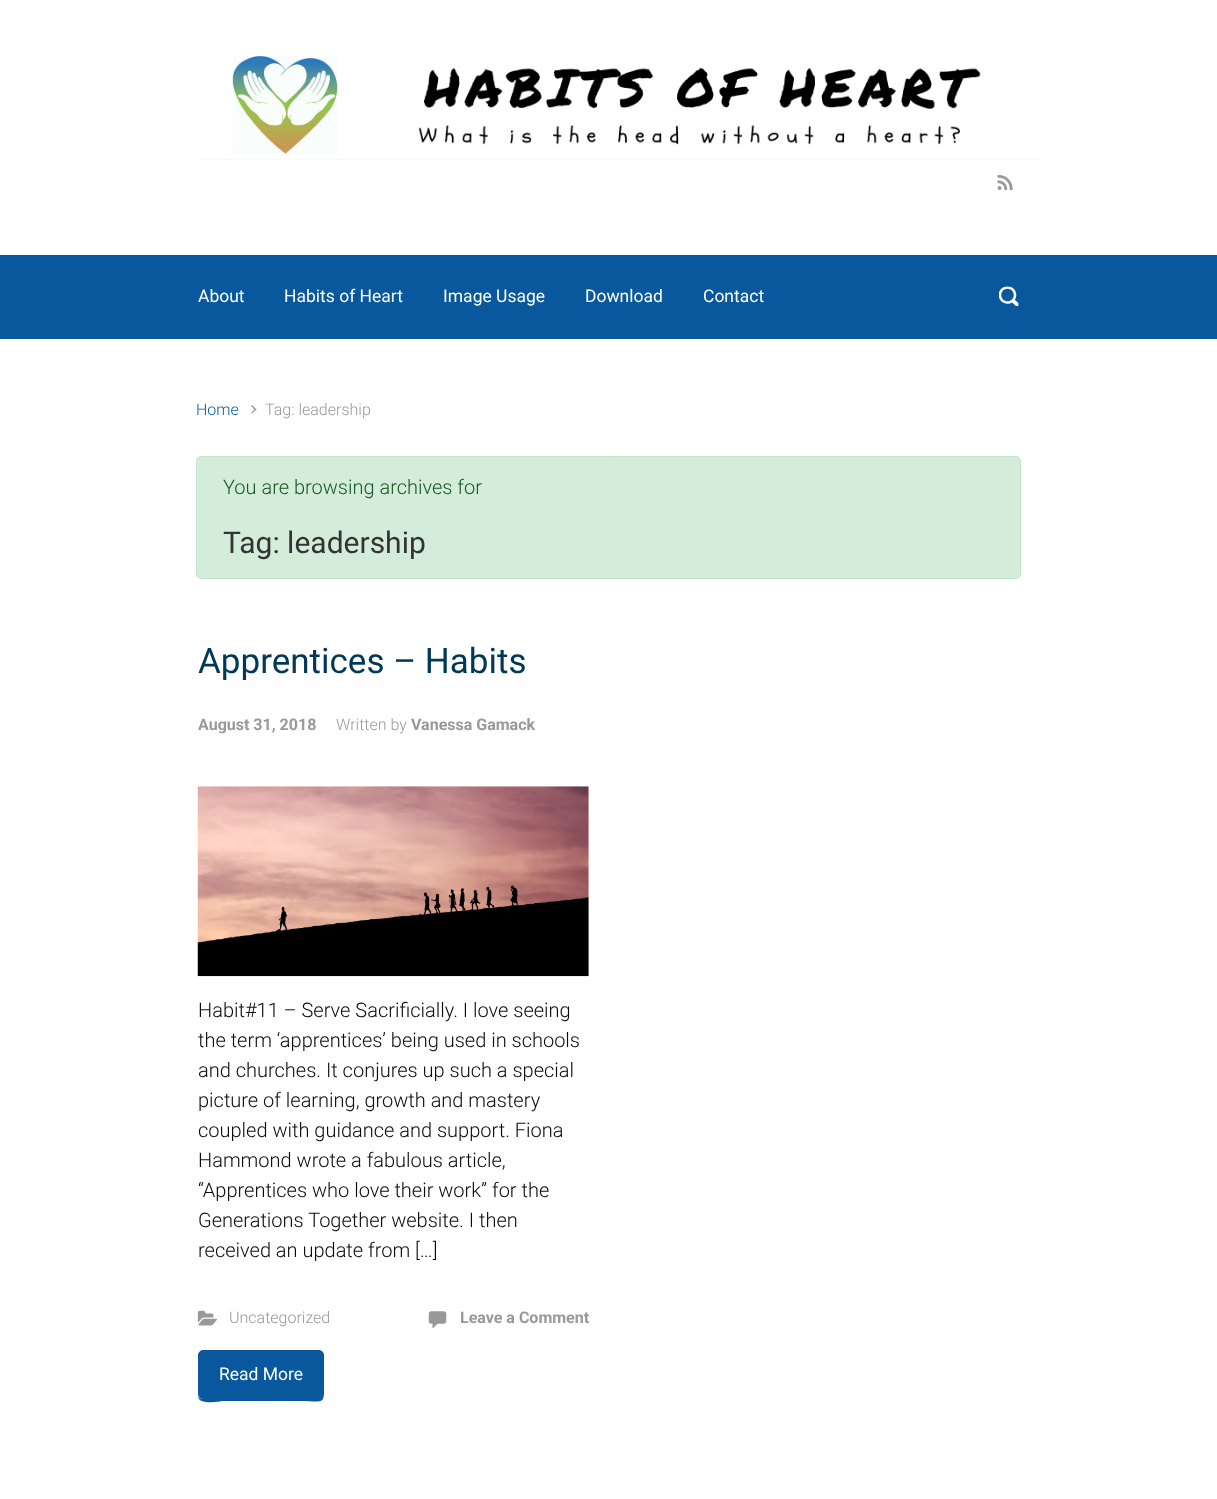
async function draw(canvas) {
  canvas.width = 1217
  canvas.height = 1499
  const ctx = canvas.getContext('2d')
  ctx.miterLimit = 4
  ctx.fontKerning = 'normal'
  async function loadImage(src) {
    const img = new Image()
    img.src = src
    await img.decode()
    return img
  }

  ctx.fillStyle = '#fff'
  ctx.fillRect(0, 0, 1217, 1499)
  ctx.drawImage(await loadImage('image0.png'), 196, 55, 844, 105)
  ctx.drawImage(await loadImage('image1.png'), 997, 175, 16, 15)
  ctx.fillStyle = '#09589e'
  ctx.fillRect(0, 255, 1217, 84)
  ctx.font = '17.5px Roboto'
  ctx.fillStyle = '#fff'
  ctx.fillText('About', 198, 302)
  ctx.fillText('Habits of Heart', 284, 302)
  ctx.fillText('Image Usage', 443, 302)
  ctx.fillText('Download', 585, 302)
  ctx.fillText('Contact', 703, 302)
  ctx.drawImage(await loadImage('image2.png'), 999, 286, 20, 20)
  ctx.font = '300 16px Roboto'
  ctx.fillStyle = '#09589e'
  ctx.fillText('Home', 196, 415)
  ctx.fillStyle = '#999'
  ctx.beginPath()
  ctx.moveTo(251, 406)
  ctx.lineTo(252, 405)
  ctx.lineTo(256.5, 409.5)
  ctx.lineTo(255.5, 410.5)
  ctx.closePath()
  ctx.fill()
  ctx.beginPath()
  ctx.moveTo(251, 413)
  ctx.lineTo(255.5, 408.5)
  ctx.lineTo(256.5, 409.5)
  ctx.lineTo(252, 413.5)
  ctx.closePath()
  ctx.fill()
  ctx.fillText('Tag: leadership', 265, 415)
  ctx.fillStyle = '#d4edda'
  ctx.beginPath()
  ctx.roundRect(196.5, 456.5, 824, 122, 4.5)
  ctx.fill()
  ctx.strokeStyle = '#c3e6cb'
  ctx.stroke()
  ctx.font = '300 20px Roboto'
  ctx.fillStyle = '#155724'
  ctx.fillText('You are browsing archives for', 223, 494)
  ctx.font = '30px Roboto'
  ctx.fillStyle = '#333'
  ctx.fillText('Tag: leadership', 223, 553)
  ctx.font = '35px Roboto'
  ctx.fillStyle = '#003856'
  ctx.fillText('Apprentices – Habits', 198, 673)
  ctx.font = 'bold 16px Roboto'
  ctx.fillStyle = '#999'
  ctx.fillText('August 31, 2018', 198, 730)
  ctx.font = '300 16px Roboto'
  ctx.fillText('Written by', 336, 730)
  ctx.font = 'bold 16px Roboto'
  ctx.fillText('Vanessa Gamack', 411, 730)
  ctx.drawImage(await loadImage('image3.png'), 197, 786, 392, 191)
  ctx.font = '300 20px Roboto'
  ctx.fillStyle = '#0a0a0a'
  ctx.fillText('Habit#11 – Serve Sacrificially. I love seeing', 198, 1017)
  ctx.fillText('the term ‘apprentices’ being used in schools', 198, 1047)
  ctx.fillText('and churches. It conjures up such a special', 198, 1077)
  ctx.fillText('picture of learning, growth and mastery', 198, 1107)
  ctx.fillText('coupled with guidance and support. Fiona', 198, 1137)
  ctx.fillText('Hammond wrote a fabulous article,', 198, 1167)
  ctx.fillText('“Apprentices who love their work” for the', 198, 1197)
  ctx.fillText('Generations Together website. I then', 198, 1227)
  ctx.fillText('received an update from […]', 198, 1257)
  ctx.drawImage(await loadImage('image4.png'), 197, 1310, 20, 16)
  ctx.font = '300 16px Roboto'
  ctx.fillStyle = '#999'
  ctx.fillText('Uncategorized', 229, 1323)
  ctx.drawImage(await loadImage('image5.png'), 428, 1311, 19, 18)
  ctx.font = 'bold 16px Roboto'
  ctx.fillText('Leave a Comment', 460, 1323)
  ctx.fillStyle = '#09589e'
  ctx.beginPath()
  ctx.moveTo(198, 1396)
  ctx.bezierCurveTo(198, 1406, 222, 1401, 222, 1401)
  ctx.lineTo(300, 1401)
  ctx.bezierCurveTo(325, 1401, 324, 1406, 324, 1383)
  ctx.lineTo(324, 1356)
  ctx.lineTo(324, 1394)
  ctx.bezierCurveTo(324, 1396, 321, 1399, 318, 1399)
  ctx.lineTo(203, 1399)
  ctx.bezierCurveTo(201, 1399, 199, 1398, 198, 1396)
  ctx.closePath()
  ctx.fill()
  ctx.beginPath()
  ctx.roundRect(198.5, 1350.5, 125, 48, 4.5)
  ctx.fill()
  ctx.strokeStyle = '#09589e'
  ctx.stroke()
  ctx.font = '17.5px Roboto'
  ctx.fillStyle = '#fff'
  ctx.fillText('Read More', 219, 1380)
}

draw(document.querySelector('canvas'))
